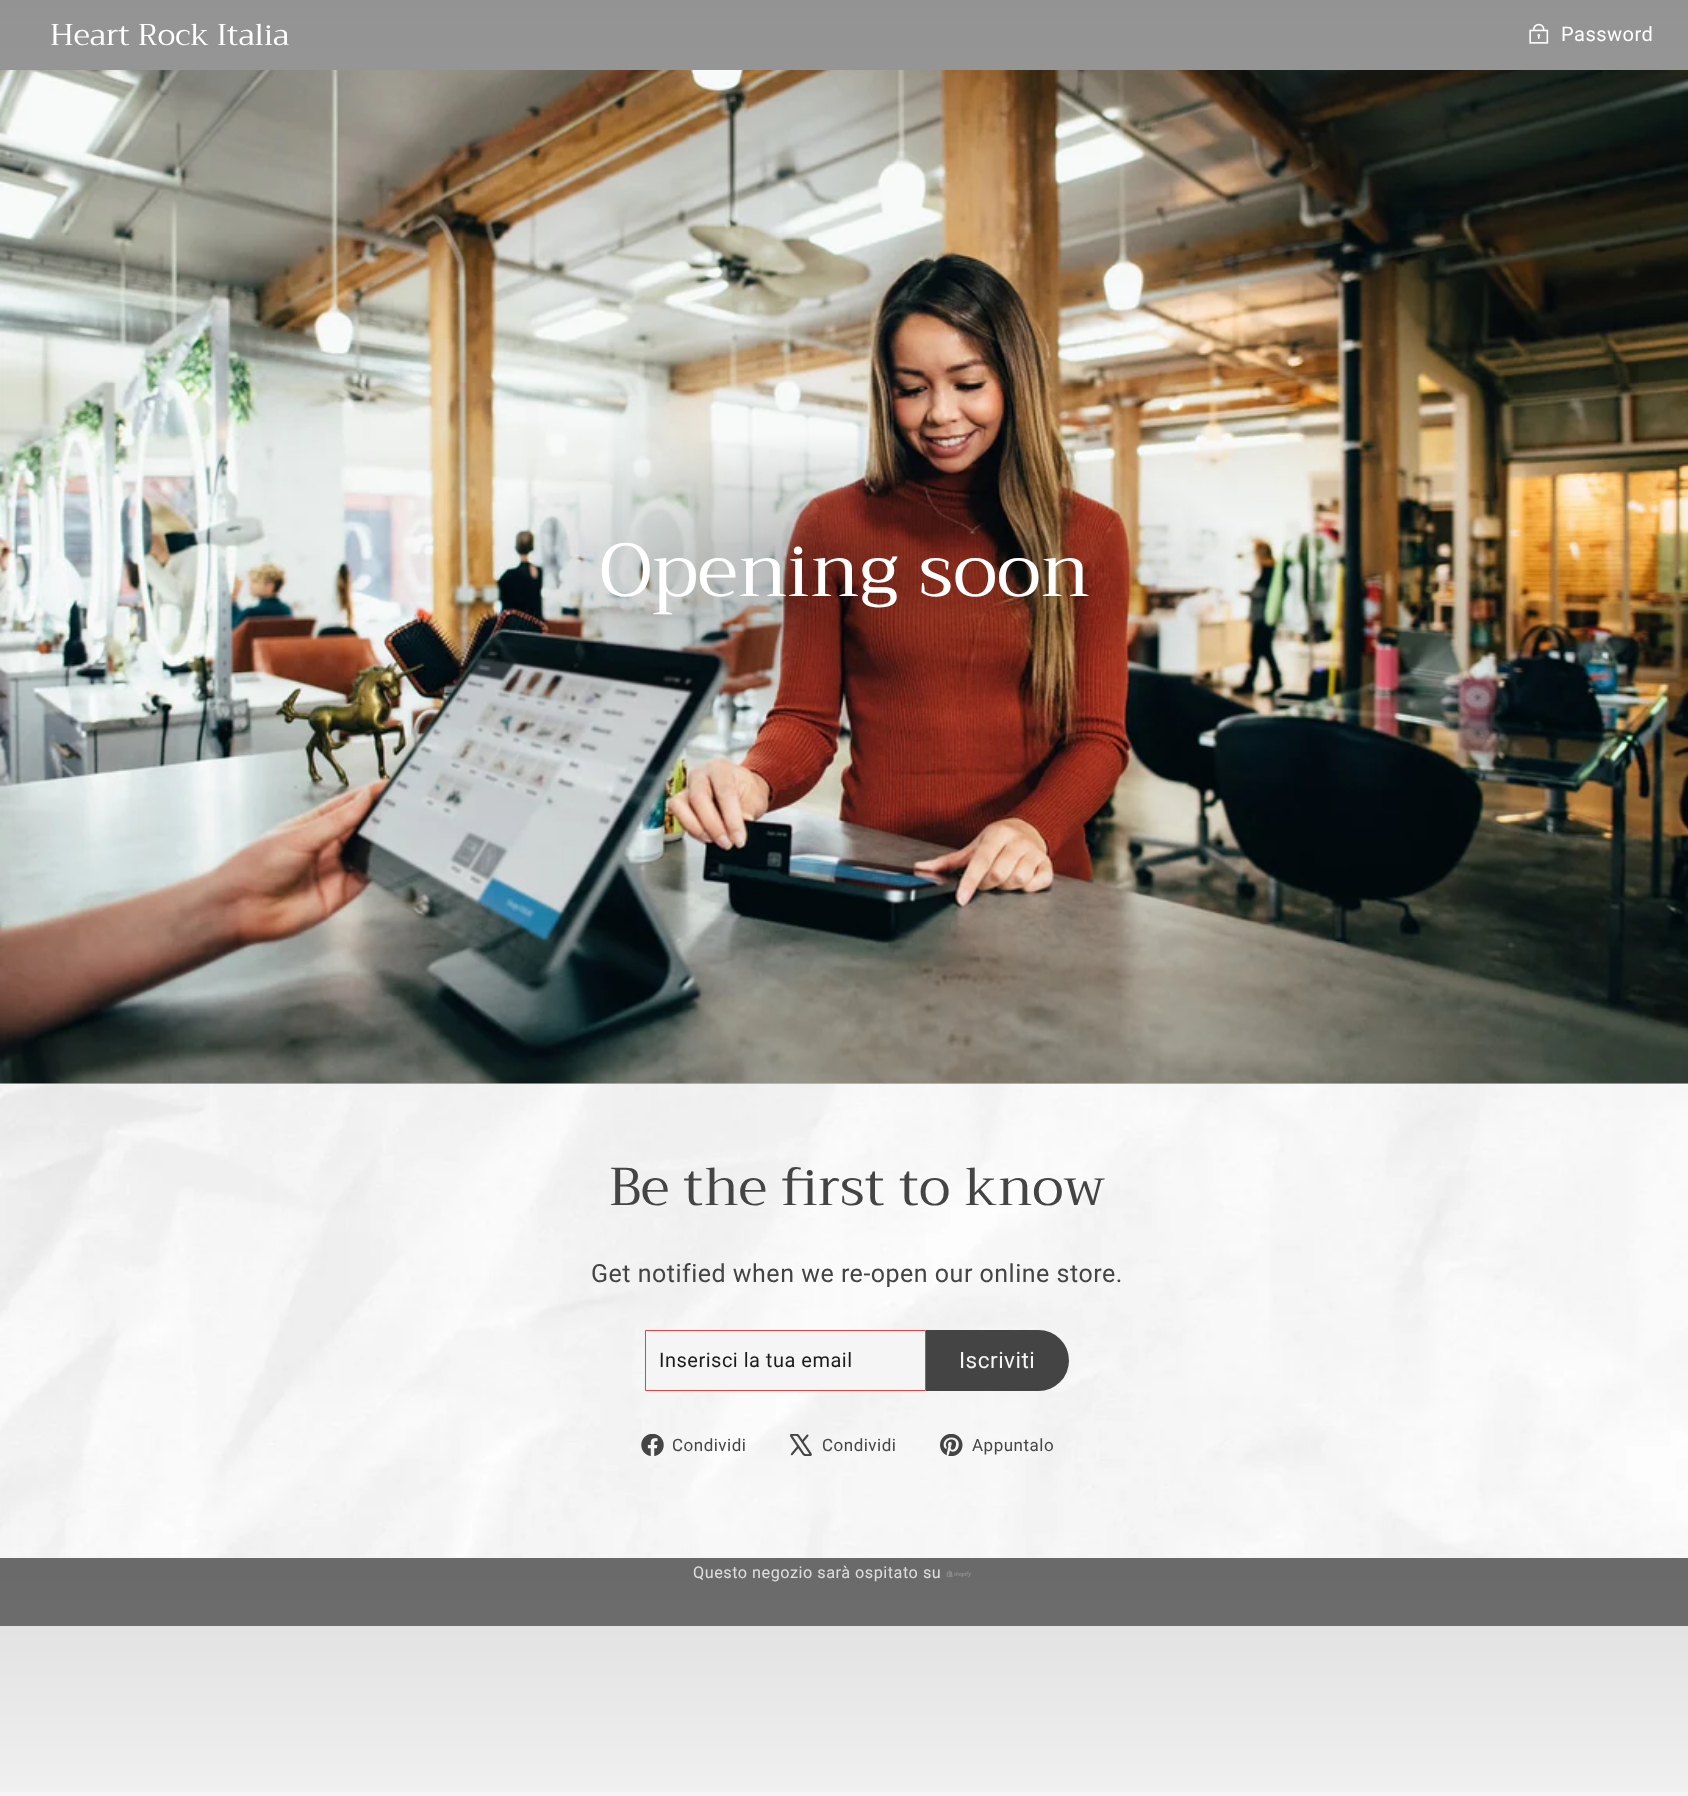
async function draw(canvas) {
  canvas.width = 1688
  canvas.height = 1796
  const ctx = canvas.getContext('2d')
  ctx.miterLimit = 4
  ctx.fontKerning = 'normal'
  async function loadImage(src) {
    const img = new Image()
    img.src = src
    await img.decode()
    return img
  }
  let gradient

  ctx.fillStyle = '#f5f5f5'
  ctx.fillRect(0, 0, 1688, 1796)
  ctx.fillStyle = '#757575'
  ctx.fillRect(0, 1558, 1688, 68)
  ctx.letterSpacing = '0.5px'
  ctx.font = '16.25px Roboto'
  ctx.fillStyle = '#f5f5f5'
  ctx.fillText('Questo negozio sarà ospitato su', 693, 1578)
  ctx.drawImage(await loadImage('image6.png'), 946, 1570, 25, 8)
  gradient = ctx.createLinearGradient(844, 0, 844, 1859)
  gradient.addColorStop(0, '#00000066')
  gradient.addColorStop(0.5, '#0000004d')
  gradient.addColorStop(1, '#00000000')
  ctx.fillStyle = gradient
  ctx.fillRect(0, 0, 1688, 1792)
  ctx.letterSpacing = '0px'
  ctx.font = '30px Trirong'
  ctx.fillStyle = '#fff'
  ctx.fillText('Heart Rock Italia', 50, 45)
  ctx.drawImage(await loadImage('image0.png'), 1529, 23, 20, 21)
  ctx.letterSpacing = '0.5px'
  ctx.font = '20px Roboto'
  ctx.fillText('Password', 1561, 41)
  ctx.drawImage(await loadImage('image1.png'), 0, 70, 1688, 1014)
  ctx.letterSpacing = '0px'
  ctx.font = '75px Trirong'
  ctx.fillText('Opening soon', 599, 596)
  ctx.fillStyle = '#f5f5f5'
  ctx.fillRect(0, 1557, 1688, 1)
  ctx.drawImage(await loadImage('image2.png'), 0, 1083, 1688, 475)
  ctx.font = '53.1px Trirong'
  ctx.fillStyle = '#444'
  ctx.fillText('Be the first to know', 609, 1205)
  ctx.letterSpacing = '0.5px'
  ctx.font = '25px Roboto'
  ctx.fillText('Get notified when we re-open our online store.', 591, 1282)
  ctx.fillStyle = '#f5f5f5'
  ctx.beginPath()
  ctx.rect(645.5, 1330.5, 280, 60)
  ctx.fill()
  ctx.strokeStyle = '#d74648'
  ctx.stroke()
  ctx.font = '20px Roboto'
  ctx.fillStyle = '#1c1c1c'
  ctx.fillText('Inserisci la tua email', 659, 1367)
  ctx.fillStyle = '#444'
  ctx.beginPath()
  ctx.roundRect(926, 1330, 143, 61, [0, 30.5, 30.5, 0])
  ctx.fill()
  ctx.font = '22.5px Roboto'
  ctx.fillStyle = '#f5f5f5'
  ctx.fillText('Iscriviti', 959, 1368)
  ctx.drawImage(await loadImage('image3.png'), 641, 1434, 23, 22)
  ctx.font = '17px Roboto'
  ctx.fillStyle = '#444'
  ctx.fillText('Condividi', 672, 1451)
  ctx.drawImage(await loadImage('image4.png'), 790, 1434, 22, 22)
  ctx.fillText('Condividi', 822, 1451)
  ctx.drawImage(await loadImage('image5.png'), 940, 1434, 23, 22)
  ctx.fillText('Appuntalo', 972, 1451)
}

draw(document.querySelector('canvas'))
